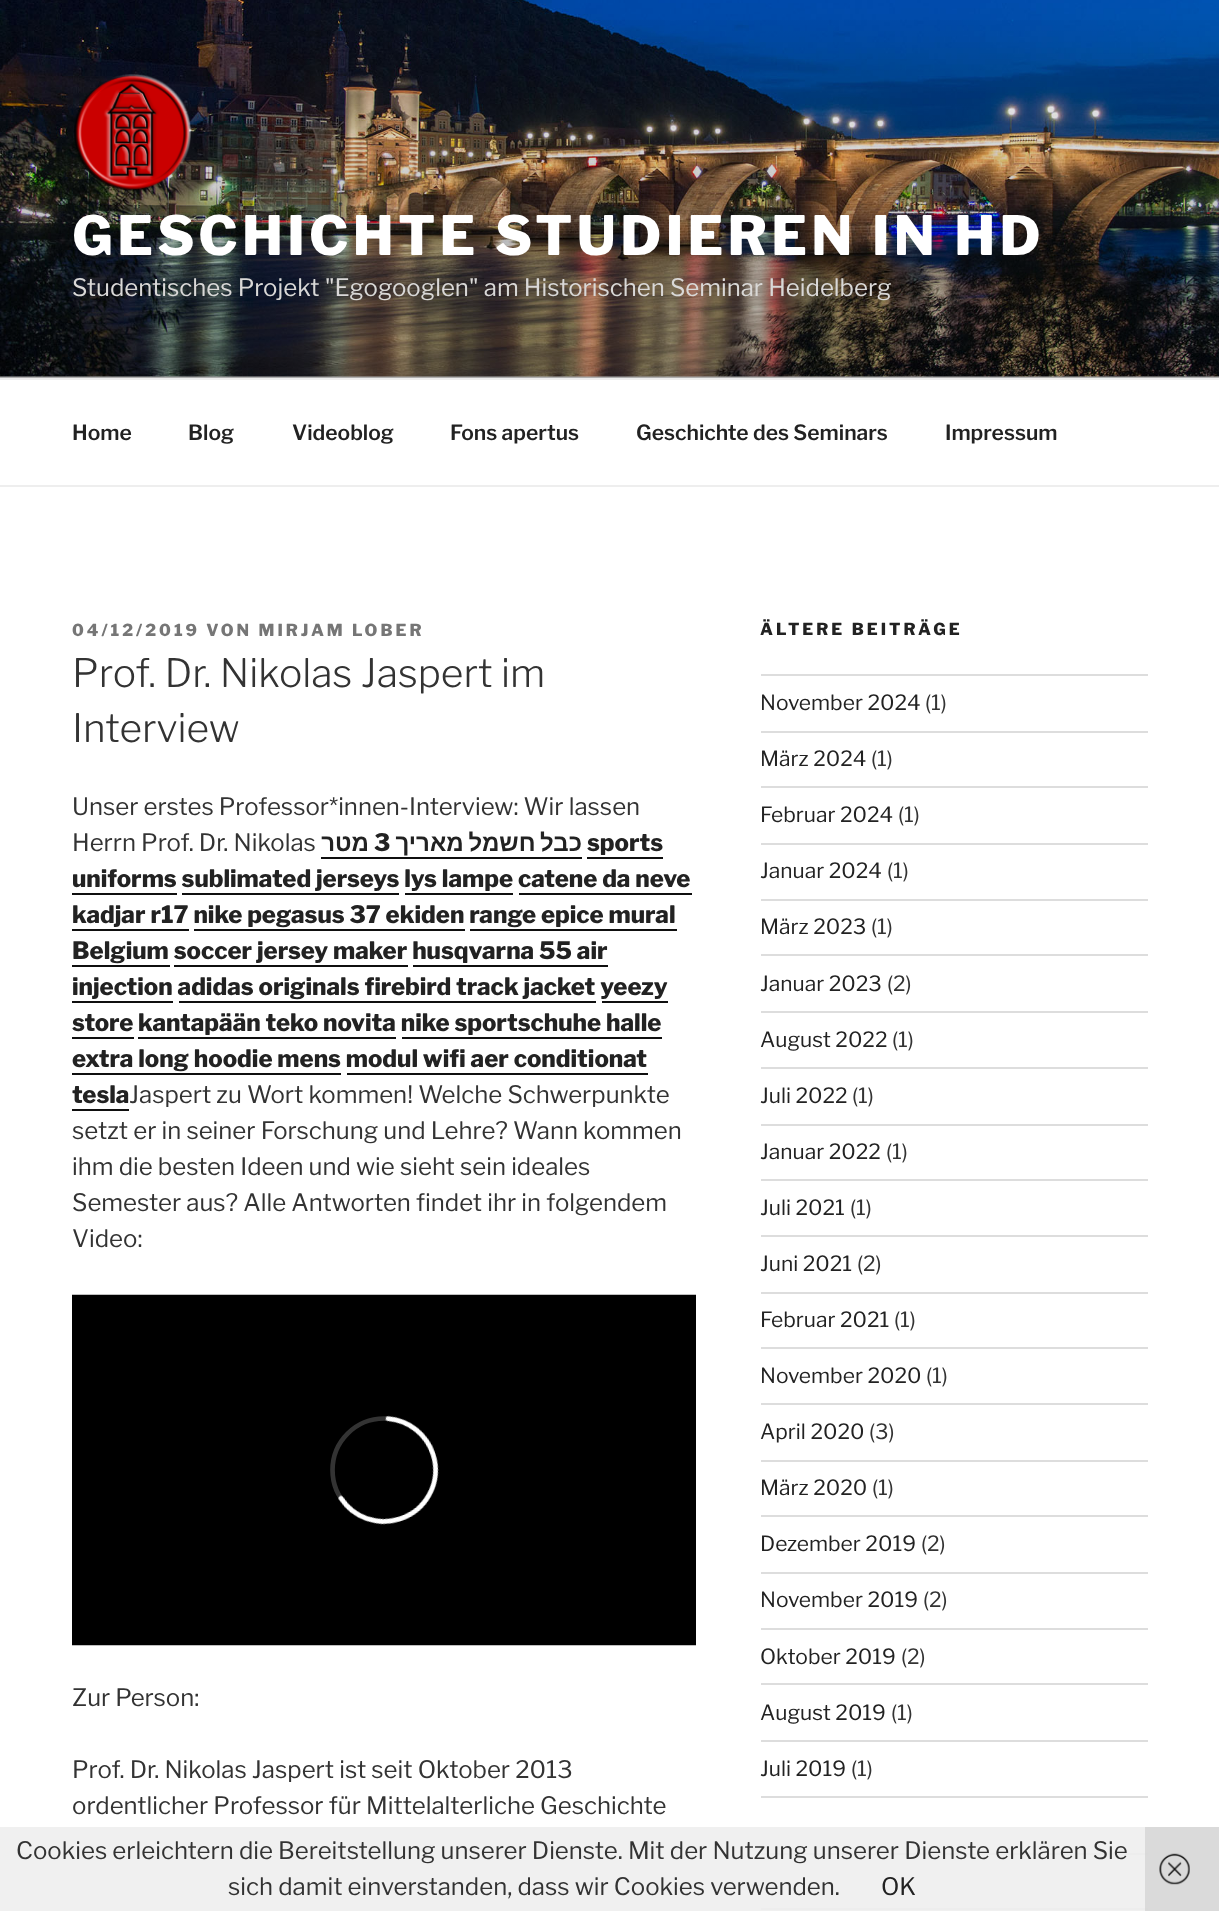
async function draw(canvas) {
  canvas.width = 1219
  canvas.height = 1911
  const ctx = canvas.getContext('2d')
  ctx.miterLimit = 4
  ctx.fontKerning = 'normal'
  async function loadImage(src) {
    const img = new Image()
    img.src = src
    await img.decode()
    return img
  }
  let gradient

  ctx.fillStyle = '#fff'
  ctx.fillRect(0, 0, 1219, 1911)
  ctx.fillStyle = '#fafafa'
  ctx.fillRect(0, 376, 1219, 2)
  ctx.drawImage(await loadImage('image0.png'), 0, 0, 1219, 377)
  gradient = ctx.createLinearGradient(610, 0, 610, 378)
  gradient.addColorStop(0, '#00000000')
  gradient.addColorStop(0.75, '#0000004d')
  gradient.addColorStop(1, '#0000004d')
  ctx.fillStyle = gradient
  ctx.fillRect(0, 20, 1219, 358)
  ctx.drawImage(await loadImage('image1.png'), 74, 74, 117, 118)
  ctx.letterSpacing = '4.3px'
  ctx.font = '100 54px Libre Franklin'
  ctx.fillStyle = '#fff'
  ctx.fillText('GESCHICHTE STUDIEREN IN HD', 72, 255)
  ctx.letterSpacing = '0px'
  ctx.font = '100 24px "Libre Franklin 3"'
  ctx.fillStyle = '#d9d8d7'
  ctx.fillText('Studentisches Projekt "Egogooglen" am Historischen Seminar Heidelberg', 72, 296)
  ctx.fillStyle = '#eee'
  ctx.fillRect(0, 378, 1219, 2)
  ctx.fillRect(0, 485, 1219, 2)
  ctx.font = '100 21px "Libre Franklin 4"'
  ctx.fillStyle = '#222'
  ctx.fillText('Home', 72, 440)
  ctx.fillText('Blog', 188, 440)
  ctx.fillText('Videoblog', 292, 440)
  ctx.fillText('Fons apertus', 450, 440)
  ctx.fillText('Geschichte des Seminars', 636, 440)
  ctx.fillText('Impressum', 945, 440)
  ctx.letterSpacing = '3px'
  ctx.font = '100 16.5px Libre Franklin'
  ctx.fillStyle = '#767676'
  ctx.fillText('04/12/2019 VON MIRJAM LOBER', 72, 636)
  ctx.letterSpacing = '0px'
  ctx.font = '100 39px "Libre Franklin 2"'
  ctx.fillStyle = '#333'
  ctx.fillText('Prof. Dr. Nikolas Jaspert im', 72, 687)
  ctx.fillText('Interview', 72, 742)
  ctx.font = '100 24px "Libre Franklin 3"'
  ctx.fillText('Unser erstes Professor*innen-Interview: Wir lassen', 72, 815)
  ctx.fillText('Herrn Prof. Dr. Nikolas', 72, 851)
  ctx.direction = 'rtl'
  ctx.font = 'bold 24px Liberation Sans'
  ctx.fillStyle = '#222'
  ctx.fillText('מטר', 369, 851)
  ctx.fillStyle = '#0f0f0f'
  ctx.fillRect(321, 857, 261, 2)
  ctx.direction = 'ltr'
  ctx.font = '100 24px Libre Franklin'
  ctx.fillStyle = '#222'
  ctx.fillText('3', 374, 851)
  ctx.wordSpacing = '-2px'
  ctx.direction = 'rtl'
  ctx.font = 'bold 24px Liberation Sans'
  ctx.fillText('כבל חשמל מאריך', 582, 851)
  ctx.wordSpacing = '0px'
  ctx.direction = 'ltr'
  ctx.font = '100 24px Libre Franklin'
  ctx.fillText('sports', 587, 851)
  ctx.fillStyle = '#0f0f0f'
  ctx.fillRect(587, 857, 76, 2)
  ctx.fillStyle = '#222'
  ctx.fillText('uniforms sublimated jerseys lys lampe catene da neve', 72, 887)
  ctx.fillStyle = '#0f0f0f'
  ctx.fillRect(72, 893, 105, 2)
  ctx.fillRect(182, 893, 217, 2)
  ctx.fillRect(405, 893, 108, 2)
  ctx.fillStyle = '#222'
  ctx.fillText('kadjar r17 nike pegasus 37 ekiden range epice mural', 72, 923)
  ctx.fillStyle = '#0f0f0f'
  ctx.fillRect(519, 893, 173, 2)
  ctx.fillRect(72, 929, 117, 2)
  ctx.fillRect(194, 929, 271, 2)
  ctx.fillStyle = '#222'
  ctx.fillText('Belgium soccer jersey maker husqvarna 55 air', 72, 959)
  ctx.fillStyle = '#0f0f0f'
  ctx.fillRect(470, 929, 207, 2)
  ctx.fillRect(72, 965, 98, 2)
  ctx.fillRect(174, 965, 234, 2)
  ctx.fillStyle = '#222'
  ctx.fillText('injection adidas originals firebird track jacket yeezy', 72, 995)
  ctx.fillStyle = '#0f0f0f'
  ctx.fillRect(413, 965, 195, 2)
  ctx.fillRect(72, 1001, 101, 2)
  ctx.fillRect(179, 1001, 417, 2)
  ctx.fillStyle = '#222'
  ctx.fillText('store', 72, 1031)
  ctx.fillStyle = '#0f0f0f'
  ctx.fillRect(602, 1001, 66, 2)
  ctx.fillRect(72, 1037, 62, 2)
  ctx.fillStyle = '#222'
  ctx.fillText('kantapään teko novita nike sportschuhe halle', 138, 1031)
  ctx.fillStyle = '#0f0f0f'
  ctx.fillRect(138, 1037, 258, 2)
  ctx.fillRect(402, 1037, 260, 2)
  ctx.fillStyle = '#222'
  ctx.fillText('extra long hoodie mens modul wifi aer conditionat', 72, 1067)
  ctx.fillStyle = '#0f0f0f'
  ctx.fillRect(72, 1073, 269, 2)
  ctx.fillStyle = '#222'
  ctx.fillText('tesla', 72, 1103)
  ctx.fillStyle = '#0f0f0f'
  ctx.fillRect(347, 1073, 301, 2)
  ctx.fillRect(72, 1109, 57, 2)
  ctx.font = '100 24px "Libre Franklin 3"'
  ctx.fillStyle = '#333'
  ctx.fillText('Jaspert zu Wort kommen! Welche Schwerpunkte', 129, 1103)
  ctx.fillText('setzt er in seiner Forschung und Lehre? Wann kommen', 72, 1139)
  ctx.fillText('ihm die besten Ideen und wie sieht sein ideales', 72, 1175)
  ctx.fillText('Semester aus? Alle Antworten findet ihr in folgendem', 72, 1211)
  ctx.fillText('Video:', 72, 1247)
  ctx.drawImage(await loadImage('image2.png'), 72, 1294, 624, 352)
  ctx.fillText('Zur Person:', 72, 1706)
  ctx.fillText('Prof. Dr. Nikolas Jaspert ist seit Oktober 2013', 72, 1778)
  ctx.fillText('ordentlicher Professor für Mittelalterliche Geschichte', 72, 1814)
  ctx.letterSpacing = '3px'
  ctx.font = '100 16.5px Libre Franklin'
  ctx.fillStyle = '#222'
  ctx.fillText('ÄLTERE BEITRÄGE', 760, 635)
  ctx.fillStyle = '#ddd'
  ctx.fillRect(761, 674, 387, 2)
  ctx.fillRect(761, 731, 387, 2)
  ctx.letterSpacing = '0px'
  ctx.font = '100 21px "Libre Franklin 3"'
  ctx.fillStyle = '#222'
  ctx.fillText('November 2024', 760, 710)
  ctx.fillStyle = '#333'
  ctx.fillText('(1)', 925, 710)
  ctx.fillStyle = '#ddd'
  ctx.fillRect(761, 786, 387, 2)
  ctx.fillStyle = '#222'
  ctx.fillText('März 2024', 760, 766)
  ctx.fillStyle = '#333'
  ctx.fillText('(1)', 871, 766)
  ctx.fillStyle = '#ddd'
  ctx.fillRect(761, 843, 387, 2)
  ctx.fillStyle = '#222'
  ctx.fillText('Februar 2024', 760, 822)
  ctx.fillStyle = '#333'
  ctx.fillText('(1)', 898, 822)
  ctx.fillStyle = '#ddd'
  ctx.fillRect(761, 899, 387, 2)
  ctx.fillStyle = '#222'
  ctx.fillText('Januar 2024', 760, 878)
  ctx.fillStyle = '#333'
  ctx.fillText('(1)', 887, 878)
  ctx.fillStyle = '#ddd'
  ctx.fillRect(761, 954, 387, 2)
  ctx.fillStyle = '#222'
  ctx.fillText('März 2023', 760, 934)
  ctx.fillStyle = '#333'
  ctx.fillText('(1)', 871, 934)
  ctx.fillStyle = '#ddd'
  ctx.fillRect(761, 1011, 387, 2)
  ctx.fillStyle = '#222'
  ctx.fillText('Januar 2023', 760, 991)
  ctx.fillStyle = '#333'
  ctx.fillText('(2)', 887, 991)
  ctx.fillStyle = '#ddd'
  ctx.fillRect(761, 1067, 387, 2)
  ctx.fillStyle = '#222'
  ctx.fillText('August 2022', 760, 1047)
  ctx.fillStyle = '#333'
  ctx.fillText('(1)', 892, 1047)
  ctx.fillStyle = '#ddd'
  ctx.fillRect(761, 1124, 387, 2)
  ctx.fillStyle = '#222'
  ctx.fillText('Juli 2022', 760, 1103)
  ctx.fillStyle = '#333'
  ctx.fillText('(1)', 852, 1103)
  ctx.fillStyle = '#ddd'
  ctx.fillRect(761, 1179, 387, 2)
  ctx.fillStyle = '#222'
  ctx.fillText('Januar 2022', 760, 1159)
  ctx.fillStyle = '#333'
  ctx.fillText('(1)', 886, 1159)
  ctx.fillStyle = '#ddd'
  ctx.fillRect(761, 1235, 387, 2)
  ctx.fillStyle = '#222'
  ctx.fillText('Juli 2021', 760, 1215)
  ctx.fillStyle = '#333'
  ctx.fillText('(1)', 850, 1215)
  ctx.fillStyle = '#ddd'
  ctx.fillRect(761, 1292, 387, 2)
  ctx.fillStyle = '#222'
  ctx.fillText('Juni 2021', 760, 1271)
  ctx.fillStyle = '#333'
  ctx.fillText('(2)', 857, 1271)
  ctx.fillStyle = '#ddd'
  ctx.fillRect(761, 1347, 387, 2)
  ctx.fillStyle = '#222'
  ctx.fillText('Februar 2021', 760, 1327)
  ctx.fillStyle = '#333'
  ctx.fillText('(1)', 894, 1327)
  ctx.fillStyle = '#ddd'
  ctx.fillRect(761, 1403, 387, 2)
  ctx.fillStyle = '#222'
  ctx.fillText('November 2020', 760, 1383)
  ctx.fillStyle = '#333'
  ctx.fillText('(1)', 926, 1383)
  ctx.fillStyle = '#ddd'
  ctx.fillRect(761, 1460, 387, 2)
  ctx.fillStyle = '#222'
  ctx.fillText('April 2020', 760, 1439)
  ctx.fillStyle = '#333'
  ctx.fillText('(3)', 869, 1439)
  ctx.fillStyle = '#ddd'
  ctx.fillRect(761, 1515, 387, 2)
  ctx.fillStyle = '#222'
  ctx.fillText('März 2020', 760, 1495)
  ctx.fillStyle = '#333'
  ctx.fillText('(1)', 872, 1495)
  ctx.fillStyle = '#ddd'
  ctx.fillRect(761, 1572, 387, 2)
  ctx.fillStyle = '#222'
  ctx.fillText('Dezember 2019', 760, 1551)
  ctx.fillStyle = '#333'
  ctx.fillText('(2)', 921, 1551)
  ctx.fillStyle = '#ddd'
  ctx.fillRect(761, 1628, 387, 2)
  ctx.fillStyle = '#222'
  ctx.fillText('November 2019', 760, 1607)
  ctx.fillStyle = '#333'
  ctx.fillText('(2)', 923, 1607)
  ctx.fillStyle = '#ddd'
  ctx.fillRect(761, 1683, 387, 2)
  ctx.fillStyle = '#222'
  ctx.fillText('Oktober 2019', 760, 1664)
  ctx.fillStyle = '#333'
  ctx.fillText('(2)', 901, 1664)
  ctx.fillStyle = '#ddd'
  ctx.fillRect(761, 1740, 387, 2)
  ctx.fillStyle = '#222'
  ctx.fillText('August 2019', 760, 1720)
  ctx.fillStyle = '#333'
  ctx.fillText('(1)', 891, 1720)
  ctx.fillStyle = '#ddd'
  ctx.fillRect(761, 1796, 387, 2)
  ctx.fillStyle = '#222'
  ctx.fillText('Juli 2019', 760, 1776)
  ctx.fillStyle = '#333'
  ctx.fillText('(1)', 851, 1776)
  ctx.fillStyle = '#ddd'
  ctx.fillRect(761, 1853, 387, 2)
  ctx.fillRect(761, 1908, 387, 2)
  ctx.fillStyle = '#eeeeeee6'
  ctx.fillRect(0, 1827, 1219, 84)
  ctx.font = '100 24px "Libre Franklin 3"'
  ctx.fillStyle = '#333'
  ctx.fillText('Cookies erleichtern die Bereitstellung unserer Dienste. Mit der Nutzung unserer Dienste erklären Sie', 16, 1859)
  ctx.fillText('sich damit einverstanden, dass wir Cookies verwenden.', 228, 1895)
  ctx.fillStyle = '#222'
  ctx.fillText('OK', 881, 1895)
  ctx.fillStyle = '#cccccc99'
  ctx.fillRect(1145, 1827, 74, 84)
  ctx.drawImage(await loadImage('image3.png'), 1159, 1853, 31, 32)
}

draw(document.querySelector('canvas'))
